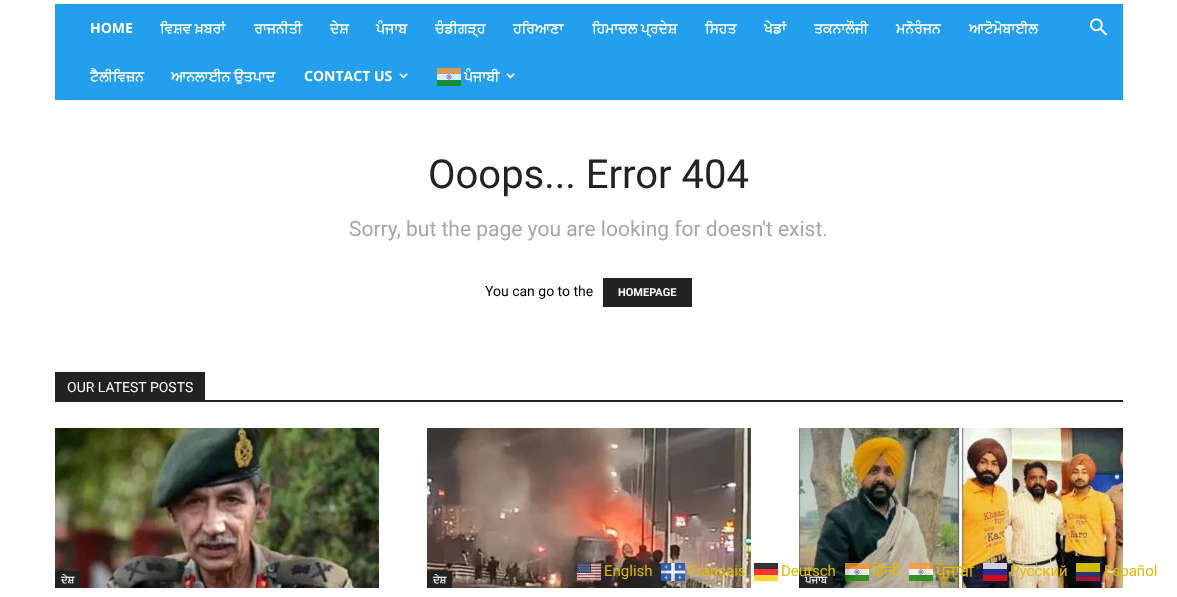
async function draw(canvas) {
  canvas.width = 1177
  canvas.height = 597
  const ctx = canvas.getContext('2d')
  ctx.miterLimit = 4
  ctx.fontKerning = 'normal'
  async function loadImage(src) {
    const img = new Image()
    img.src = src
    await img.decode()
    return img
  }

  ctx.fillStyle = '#fff'
  ctx.fillRect(0, 0, 1177, 597)
  ctx.fillStyle = '#239fed'
  ctx.fillRect(55, 4, 1068, 96)
  ctx.font = 'bold 14px Open Sans'
  ctx.fillStyle = '#fff'
  ctx.fillText('HOME', 90, 33)
  ctx.font = 'bold 14px FreeSans'
  ctx.fillText('ਵਿਸ਼ਵ ਖ਼ਬਰਾਂ', 160, 33)
  ctx.fillText('ਰਾਜਨੀਤੀ', 254, 33)
  ctx.fillText('ਦੇਸ਼', 330, 33)
  ctx.fillText('ਪੰਜਾਬ', 376, 33)
  ctx.fillText('ਚੰਡੀਗੜ੍ਹ', 435, 33)
  ctx.fillText('ਹਰਿਆਣਾ', 513, 33)
  ctx.fillText('ਹਿਮਾਚਲ ਪ੍ਰਦੇਸ਼', 592, 33)
  ctx.fillText('ਸਿਹਤ', 705, 33)
  ctx.fillText('ਖੇਡਾਂ', 764, 33)
  ctx.fillText('ਤਕਨਾਲੌਜੀ', 814, 33)
  ctx.fillText('ਮਨੋਰੰਜਨ', 896, 33)
  ctx.fillText('ਆਟੋਮੋਬਾਈਲ', 969, 33)
  ctx.fillText('ਟੈਲੀਵਿਜ਼ਨ', 90, 81)
  ctx.fillText('ਆਨਲਾਈਨ ਉਤਪਾਦ', 171, 81)
  ctx.font = 'bold 14px Open Sans'
  ctx.fillText('CONTACT US', 304, 81)
  ctx.drawImage(await loadImage('image0.png'), 399, 73, 9, 6)
  ctx.font = 'bold 14px FreeSans'
  ctx.fillText('ਪੰਜਾਬੀ', 464, 81)
  ctx.drawImage(await loadImage('image1.png'), 437, 68, 24, 18)
  ctx.drawImage(await loadImage('image0.png'), 506, 73, 9, 6)
  ctx.drawImage(await loadImage('image2.png'), 1090, 18, 17, 18)
  ctx.font = '40px Roboto'
  ctx.fillStyle = '#222'
  ctx.fillText('Ooops... Error 404', 428, 188)
  ctx.font = '21px Roboto'
  ctx.fillStyle = '#a6a6a6'
  ctx.fillText('Sorry, but the page you are looking for doesn\'t exist.', 349, 236)
  ctx.font = '14px Roboto'
  ctx.fillStyle = '#000'
  ctx.fillText('You can go to the', 485, 296)
  ctx.fillStyle = '#222'
  ctx.fillRect(603, 278, 89, 29)
  ctx.font = 'bold 11px Roboto'
  ctx.fillStyle = '#fff'
  ctx.fillText('HOMEPAGE', 618, 296)
  ctx.fillStyle = '#222'
  ctx.fillRect(55, 400, 1068, 2)
  ctx.fillRect(55, 372, 150, 28)
  ctx.font = '14px Roboto'
  ctx.fillStyle = '#fff'
  ctx.fillText('OUR LATEST POSTS', 67, 392)
  ctx.drawImage(await loadImage('image3.png'), 55, 428, 324, 160)
  ctx.fillStyle = '#222'
  ctx.fillRect(55, 571, 25, 17)
  ctx.font = 'bold 10px FreeSans'
  ctx.fillStyle = '#fff'
  ctx.fillText('ਦੇਸ਼', 61, 583)
  ctx.drawImage(await loadImage('image4.png'), 427, 428, 324, 160)
  ctx.fillStyle = '#222'
  ctx.fillRect(427, 571, 25, 17)
  ctx.fillStyle = '#fff'
  ctx.fillText('ਦੇਸ਼', 433, 583)
  ctx.drawImage(await loadImage('image5.png'), 799, 428, 324, 160)
  ctx.fillStyle = '#222'
  ctx.fillRect(799, 571, 34, 17)
  ctx.fillStyle = '#fff'
  ctx.fillText('ਪੰਜਾਬ', 805, 583)
  ctx.drawImage(await loadImage('image6.png'), 577, 563, 24, 18)
  ctx.font = '15px Roboto'
  ctx.fillStyle = '#e0bb00'
  ctx.fillText('English', 604, 576)
  ctx.drawImage(await loadImage('image7.png'), 661, 563, 24, 18)
  ctx.fillText('Français', 689, 576)
  ctx.fillText('Deutsch', 781, 576)
  ctx.fillStyle = '#ffd633'
  ctx.fillRect(754, 575, 24, 6)
  ctx.fillStyle = '#333'
  ctx.fillRect(754, 563, 24, 6)
  ctx.fillStyle = '#f33'
  ctx.fillRect(754, 569, 24, 6)
  ctx.drawImage(await loadImage('image8.png'), 845, 563, 24, 18)
  ctx.font = '15px Noto Sans'
  ctx.fillStyle = '#e0bb00'
  ctx.fillText('हिन्दी', 872, 576)
  ctx.font = 'bold 15px FreeSans'
  ctx.fillText('ਪੰਜਾਬੀ', 936, 576)
  ctx.drawImage(await loadImage('image9.png'), 909, 563, 24, 18)
  ctx.font = '15px Roboto'
  ctx.fillText('Русский', 1010, 576)
  ctx.fillStyle = '#ffffffcc'
  ctx.fillRect(983, 563, 24, 12)
  ctx.fillStyle = '#01017ecc'
  ctx.fillRect(983, 569, 24, 6)
  ctx.fillStyle = '#d4091d'
  ctx.fillRect(983, 575, 24, 6)
  ctx.fillStyle = '#e0bb00'
  ctx.fillText('Español', 1104, 576)
  ctx.fillStyle = '#ffe800cc'
  ctx.fillRect(1076, 563, 24, 14)
  ctx.fillStyle = '#00148ecc'
  ctx.fillRect(1076, 572, 24, 5)
  ctx.fillStyle = '#b70b24'
  ctx.fillRect(1076, 577, 24, 4)
}

draw(document.querySelector('canvas'))
